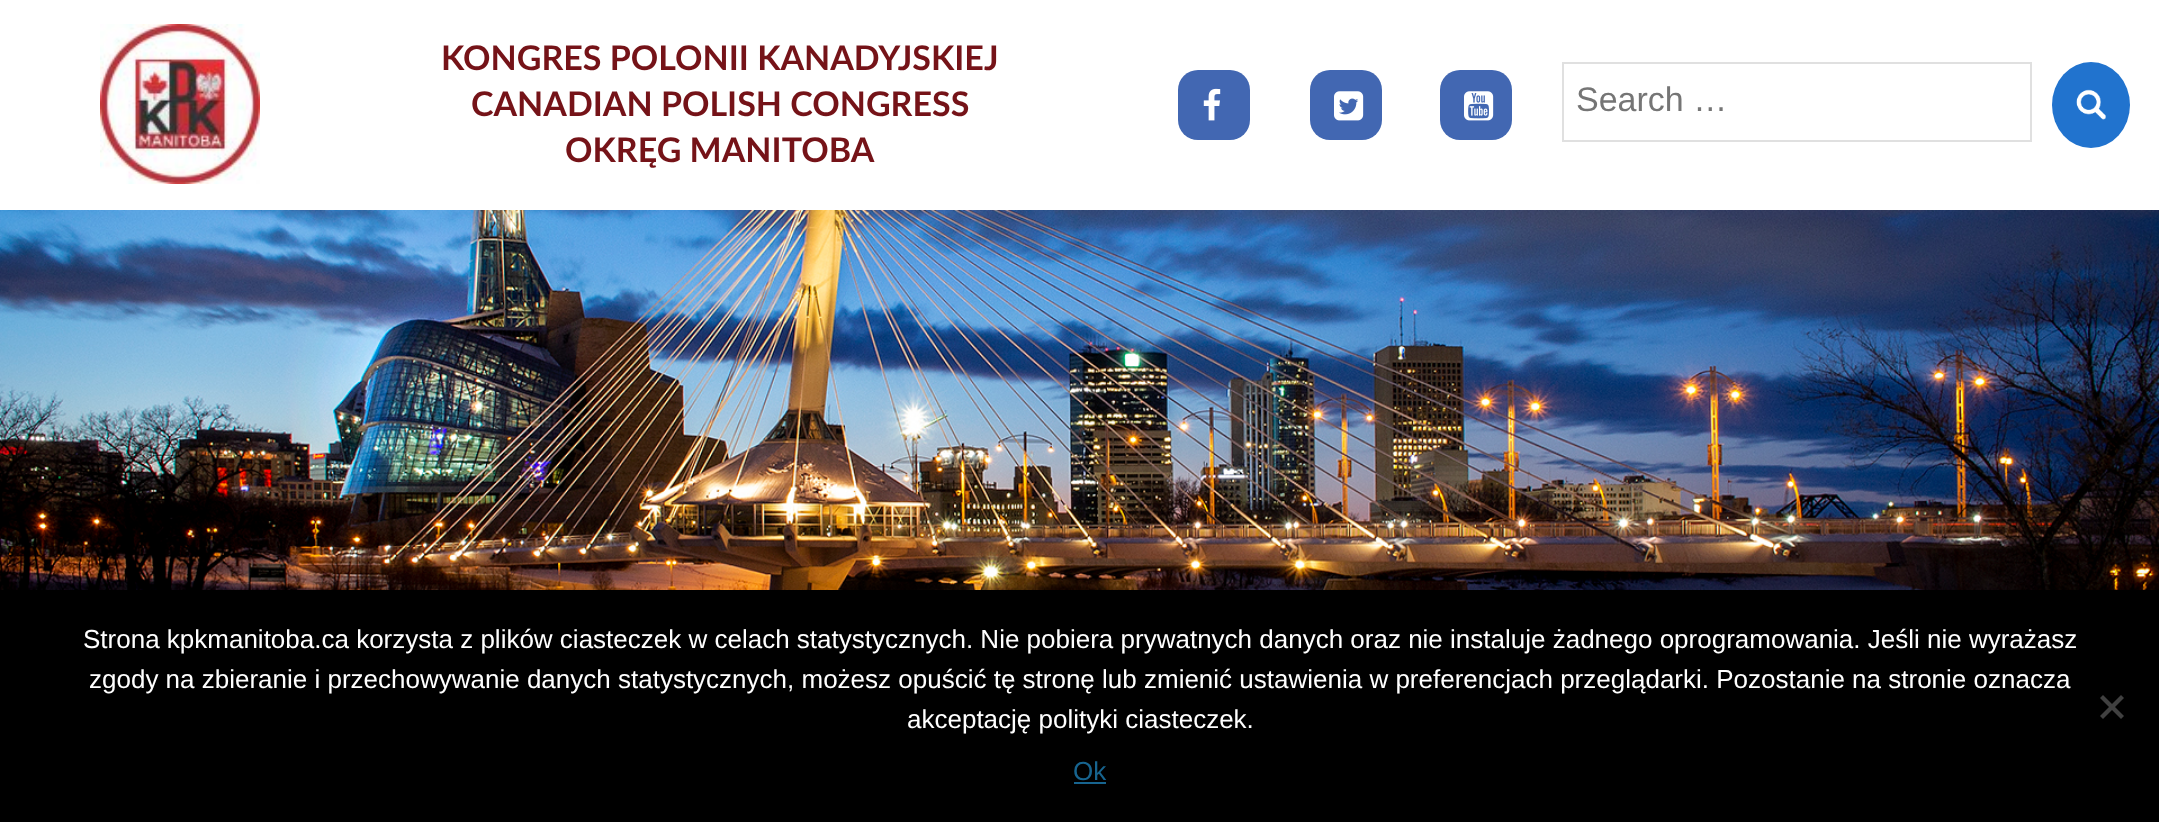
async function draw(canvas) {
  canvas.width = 2159
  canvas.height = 822
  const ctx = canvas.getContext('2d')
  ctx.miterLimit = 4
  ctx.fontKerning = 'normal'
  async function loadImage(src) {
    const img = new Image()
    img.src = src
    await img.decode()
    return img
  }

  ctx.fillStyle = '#fff'
  ctx.fillRect(0, 0, 2159, 822)
  ctx.drawImage(await loadImage('image0.png'), 100, 24, 160, 160)
  ctx.font = 'bold 34px Lato'
  ctx.fillStyle = '#751318'
  ctx.fillText('KONGRES POLONII KANADYJSKIEJ', 441, 70)
  ctx.fillText('CANADIAN POLISH CONGRESS', 471, 116)
  ctx.fillText('OKRĘG MANITOBA', 565, 162)
  ctx.fillStyle = '#4267b2'
  ctx.beginPath()
  ctx.roundRect(1178, 70, 72, 70, 20)
  ctx.fill()
  ctx.drawImage(await loadImage('image1.png'), 1203, 88, 18, 33)
  ctx.beginPath()
  ctx.roundRect(1310, 70, 72, 70, 20)
  ctx.fill()
  ctx.drawImage(await loadImage('image2.png'), 1334, 91, 30, 30)
  ctx.beginPath()
  ctx.roundRect(1440, 70, 72, 70, 20)
  ctx.fill()
  ctx.drawImage(await loadImage('image3.png'), 1464, 91, 30, 30)
  ctx.strokeStyle = '#e0e0e0'
  ctx.lineWidth = 2
  ctx.strokeRect(1563, 63, 468, 78)
  ctx.font = '34px Liberation Sans'
  ctx.fillStyle = '#757575'
  ctx.fillText('Search …', 1576, 111)
  ctx.fillStyle = '#2173ce'
  ctx.beginPath()
  ctx.ellipse(2091, 105, 39, 43, 0, 0, 2 * Math.PI)
  ctx.fill()
  ctx.drawImage(await loadImage('image4.png'), 2076, 89, 30, 31)
  ctx.drawImage(await loadImage('image5.png'), 0, 210, 2159, 380)
  ctx.fillStyle = '#000'
  ctx.fillRect(0, 590, 2159, 232)
  ctx.font = '26px Liberation Sans'
  ctx.fillStyle = '#fff'
  ctx.fillText('Strona kpkmanitoba.ca korzysta z plików ciasteczek w celach statystycznych. Nie pobiera prywatnych danych oraz nie instaluje żadnego oprogramowania. Jeśli nie wyrażasz', 83, 648)
  ctx.fillText('zgody na zbieranie i przechowywanie danych statystycznych, możesz opuścić tę stronę lub zmienić ustawienia w preferencjach przeglądarki. Pozostanie na stronie oznacza', 89, 688)
  ctx.fillText('akceptację polityki ciasteczek.', 907, 728)
  ctx.fillStyle = '#404040'
  ctx.beginPath()
  ctx.moveTo(2121, 695)
  ctx.lineTo(2124, 698)
  ctx.lineTo(2103, 719)
  ctx.lineTo(2100, 716)
  ctx.closePath()
  ctx.fill()
  ctx.beginPath()
  ctx.moveTo(2100, 698)
  ctx.lineTo(2103, 695)
  ctx.lineTo(2124, 716)
  ctx.lineTo(2121, 719)
  ctx.closePath()
  ctx.fill()
  ctx.fillStyle = '#17648f'
  ctx.fillText('Ok', 1073, 780)
  ctx.fillRect(1074, 782, 32, 2)
}

draw(document.querySelector('canvas'))
